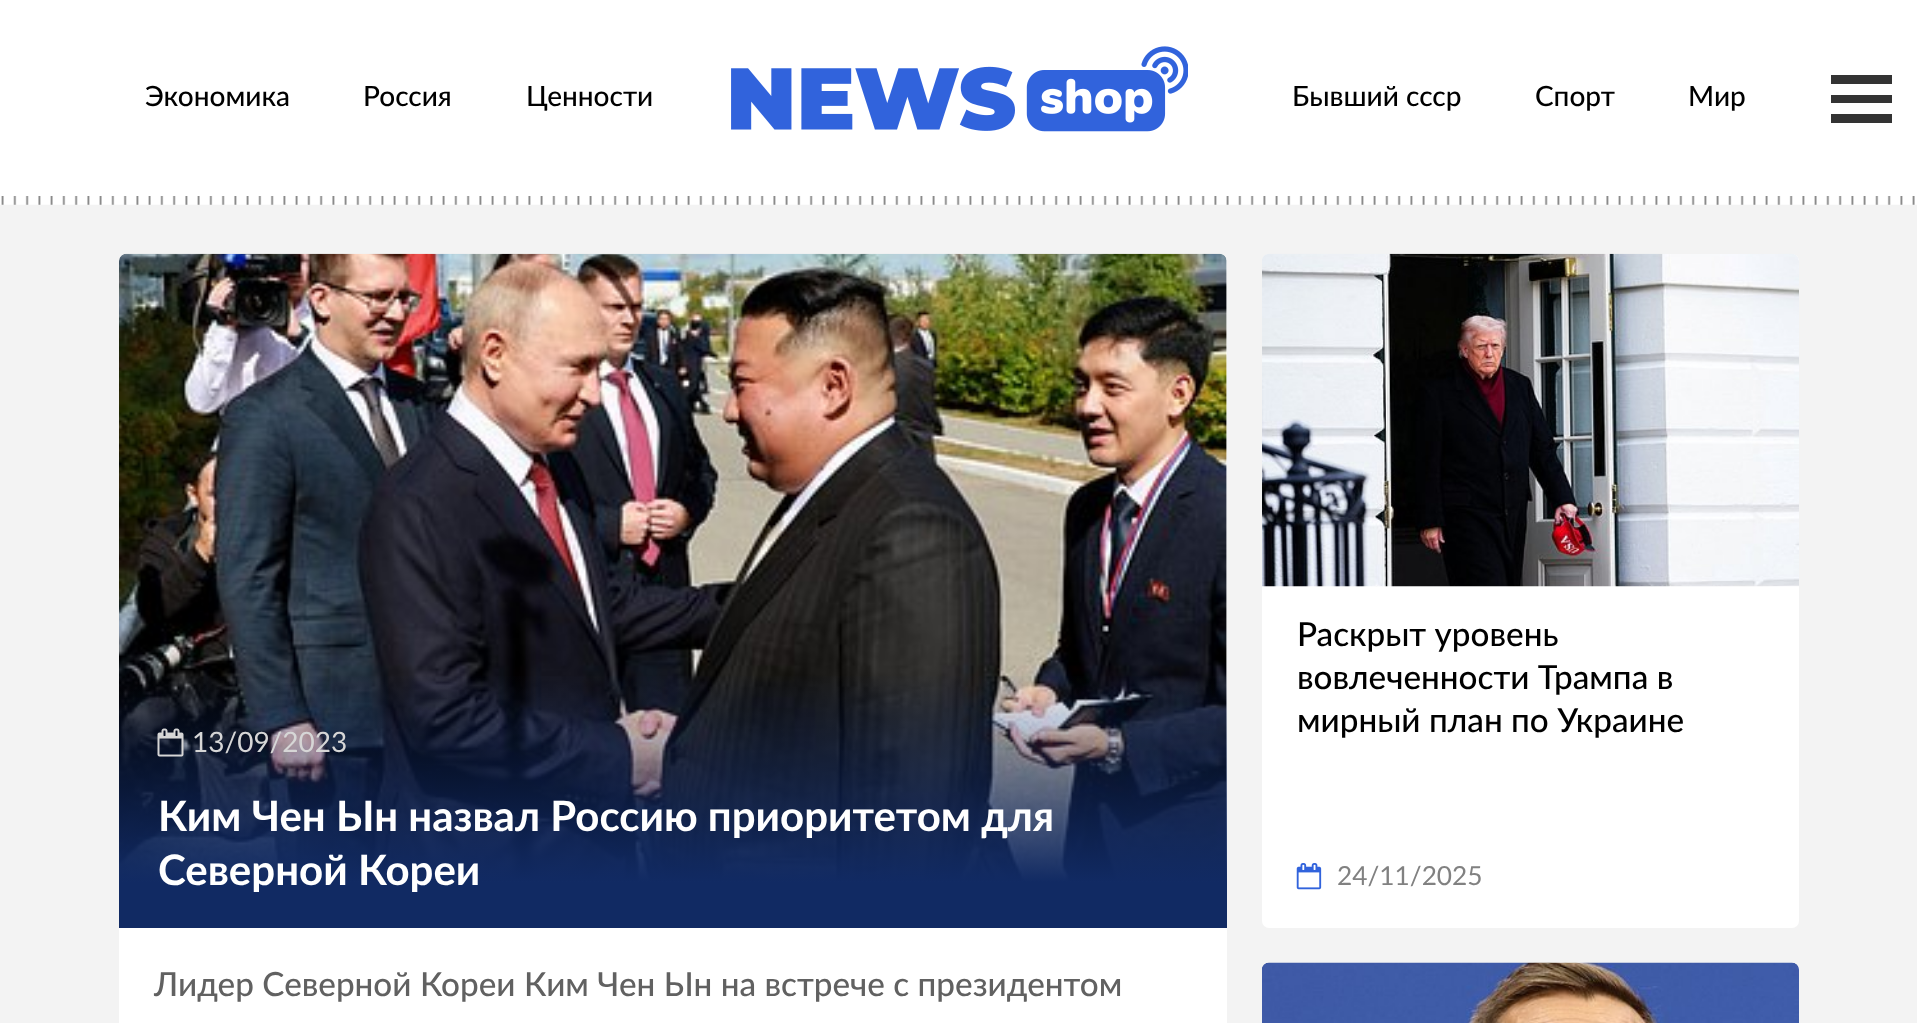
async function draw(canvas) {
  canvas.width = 1917
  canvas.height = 1023
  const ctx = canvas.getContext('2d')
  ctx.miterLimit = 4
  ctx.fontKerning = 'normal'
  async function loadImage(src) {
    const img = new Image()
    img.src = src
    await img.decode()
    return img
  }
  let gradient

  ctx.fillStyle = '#f3f3f3'
  ctx.fillRect(0, 0, 1917, 1023)
  ctx.fillStyle = '#fff'
  ctx.fillRect(0, 0, 1917, 196)
  ctx.font = '500 28px Lato'
  ctx.fillStyle = '#000'
  ctx.fillText('Экономика', 145, 106)
  ctx.fillText('Россия', 363, 106)
  ctx.fillText('Ценности', 526, 106)
  ctx.drawImage(await loadImage('image0.png'), 731, 46, 457, 86)
  ctx.fillText('Бывший ссср', 1292, 106)
  ctx.fillText('Спорт', 1535, 106)
  ctx.fillText('Мир', 1688, 106)
  ctx.fillStyle = '#333'
  ctx.fillRect(1831, 75, 61, 9)
  ctx.fillRect(1831, 95, 61, 8)
  ctx.fillRect(1831, 114, 61, 9)
  ctx.drawImage(await loadImage('image1.png'), 0, 196, 1917, 9)
  ctx.fillStyle = '#fff'
  ctx.beginPath()
  ctx.roundRect(119, 254, 1108, 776, 7)
  ctx.fill()
  ctx.drawImage(await loadImage('image2.png'), 119, 253, 1108, 628)
  gradient = ctx.createLinearGradient(673, 672, 673, 928)
  gradient.addColorStop(0, '#112a6300')
  gradient.addColorStop(0.57, '#112a63b3')
  gradient.addColorStop(0.82, '#112a63')
  ctx.fillStyle = gradient
  ctx.fillRect(119, 676, 1108, 252)
  ctx.drawImage(await loadImage('image3.png'), 157, 728, 27, 29)
  ctx.font = '28px Lato'
  ctx.fillStyle = '#d6d6d6'
  ctx.fillText('13/09/2023', 192, 752)
  ctx.font = 'bold 42px Lato'
  ctx.fillStyle = '#fff'
  ctx.fillText('Ким Чен Ын назвал Россию приоритетом для', 158, 831)
  ctx.fillText('Северной Кореи', 158, 885)
  ctx.font = '500 33.25px Lato'
  ctx.fillStyle = '#616161'
  ctx.fillText('Лидер Северной Кореи Ким Чен Ын на встрече с президентом', 154, 996)
  ctx.fillStyle = '#fff'
  ctx.beginPath()
  ctx.roundRect(1262, 254, 537, 674, 7)
  ctx.fill()
  ctx.drawImage(await loadImage('image4.png'), 1262, 253, 537, 334)
  ctx.fillStyle = '#000'
  ctx.fillText('Раскрыт уровень', 1297, 646)
  ctx.fillText('вовлеченности Трампа в', 1297, 689)
  ctx.fillText('мирный план по Украине', 1297, 732)
  ctx.drawImage(await loadImage('image5.png'), 1296, 863, 26, 27)
  ctx.font = '26.25px Lato'
  ctx.fillStyle = '#818181'
  ctx.fillText('24/11/2025', 1337, 885)
  ctx.drawImage(await loadImage('image6.png'), 1262, 962, 537, 61)
}

draw(document.querySelector('canvas'))
